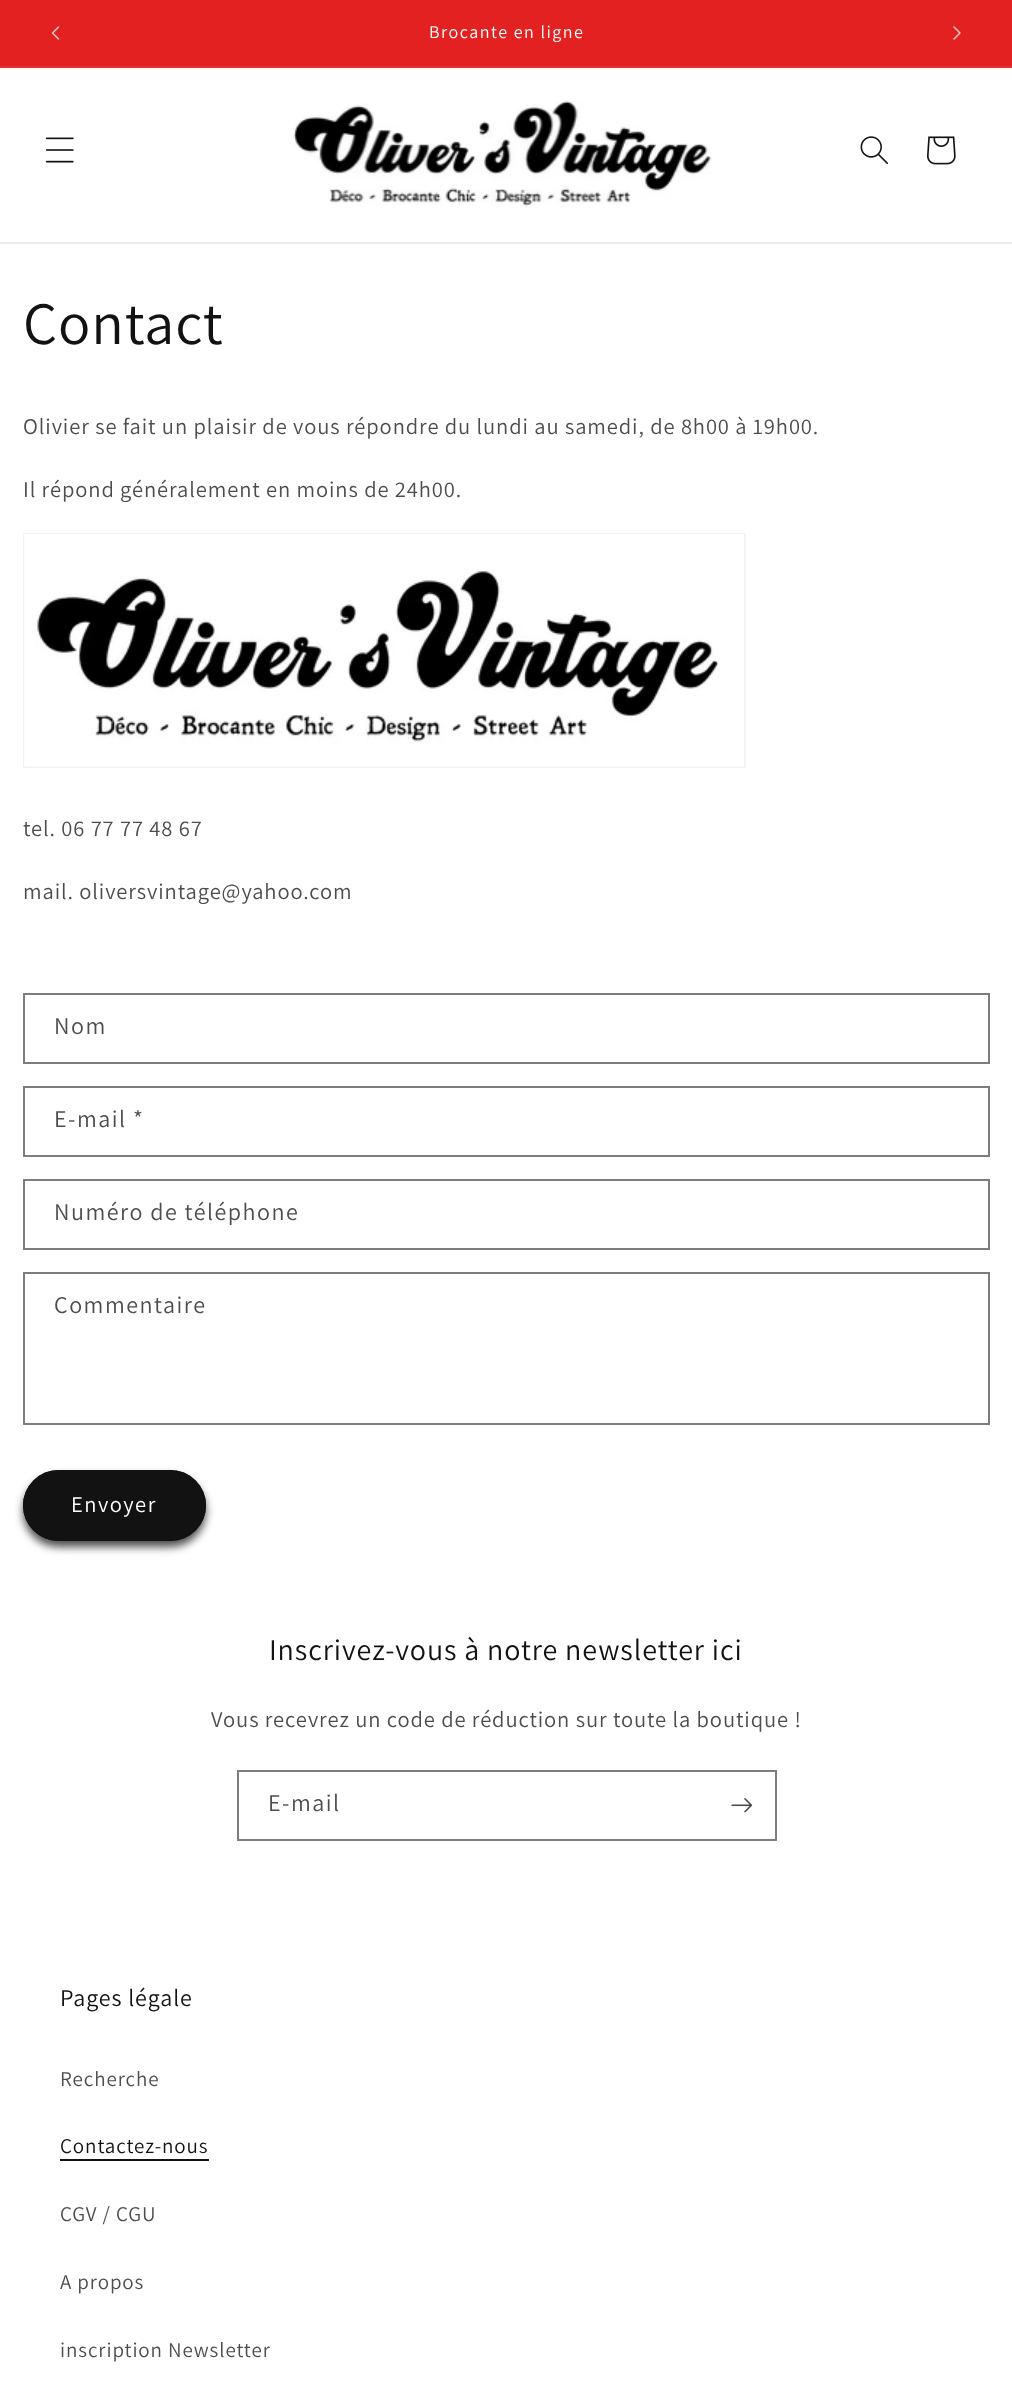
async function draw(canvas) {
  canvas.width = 1012
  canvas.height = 2382
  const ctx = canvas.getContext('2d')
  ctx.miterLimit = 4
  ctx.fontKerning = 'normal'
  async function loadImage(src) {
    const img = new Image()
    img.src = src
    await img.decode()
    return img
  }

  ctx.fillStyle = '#fff'
  ctx.fillRect(0, 0, 1012, 2382)
  ctx.fillStyle = '#e22120'
  ctx.fillRect(0, 0, 1012, 66)
  ctx.fillStyle = '#e43332'
  ctx.fillRect(0, 66, 1012, 2)
  ctx.drawImage(await loadImage('image0.png'), 51, 26, 9, 14)
  ctx.letterSpacing = '1.5px'
  ctx.font = '18px Assistant'
  ctx.fillStyle = '#fff'
  ctx.fillText('Brocante en ligne', 429, 38)
  ctx.drawImage(await loadImage('image1.png'), 953, 26, 8, 14)
  ctx.fillStyle = '#ececec'
  ctx.fillRect(0, 242, 1012, 2)
  ctx.drawImage(await loadImage('image2.png'), 45, 137, 29, 26)
  ctx.drawImage(await loadImage('image3.png'), 293, 101, 419, 106)
  ctx.drawImage(await loadImage('image4.png'), 860, 136, 28, 28)
  ctx.drawImage(await loadImage('image5.png'), 927, 136, 29, 29)
  ctx.letterSpacing = '0.9px'
  ctx.font = '60px Assistant'
  ctx.fillStyle = '#121212'
  ctx.fillText('Contact', 23, 344)
  ctx.font = '22.5px Assistant'
  ctx.fillStyle = '#4d4d4d'
  ctx.fillText('Olivier se fait un plaisir de vous répondre du lundi au samedi, de 8h00 à 19h00.', 23, 434)
  ctx.fillText('Il répond généralement en moins de 24h00.', 23, 497)
  ctx.strokeStyle = '#f3f3f3'
  ctx.lineWidth = 2
  ctx.strokeRect(24, 534, 721, 233)
  ctx.drawImage(await loadImage('image6.png'), 24, 534, 720, 233)
  ctx.fillText('tel. 06 77 77 48 67', 23, 836)
  ctx.fillText('mail. oliversvintage@yahoo.com', 23, 899)
  ctx.strokeStyle = '#7d7d7d'
  ctx.strokeRect(24, 994, 965, 69)
  ctx.letterSpacing = '1.5px'
  ctx.font = '24px Assistant'
  ctx.fillText('Nom', 54, 1034)
  ctx.strokeRect(24, 1087, 965, 69)
  ctx.fillText('E-mail *', 54, 1127)
  ctx.strokeRect(24, 1180, 965, 69)
  ctx.fillText('Numéro de téléphone', 54, 1220)
  ctx.strokeRect(24, 1273, 965, 151)
  ctx.fillText('Commentaire', 54, 1313)
  ctx.fillStyle = '#121212bf'
  ctx.filter = 'blur(4px)'
  ctx.beginPath()
  ctx.roundRect(23, 1476, 183, 71, 35.5)
  ctx.fill()
  ctx.filter = 'none'
  ctx.fillStyle = '#121212'
  ctx.beginPath()
  ctx.roundRect(23, 1470, 183, 71, 35.5)
  ctx.fill()
  ctx.beginPath()
  ctx.roundRect(24, 1471, 181, 69, 34.5)
  ctx.strokeStyle = '#121212'
  ctx.stroke()
  ctx.font = '22.5px Assistant'
  ctx.fillStyle = '#fff'
  ctx.fillText('Envoyer', 71, 1512)
  ctx.letterSpacing = '0.9px'
  ctx.font = '30px Assistant'
  ctx.fillStyle = '#121212'
  ctx.fillText('Inscrivez-vous à notre newsletter ici', 269, 1660)
  ctx.font = '22.5px Assistant'
  ctx.fillStyle = '#4d4d4d'
  ctx.fillText('Vous recevrez un code de réduction sur toute la boutique !', 211, 1727)
  ctx.strokeStyle = '#7d7d7d'
  ctx.strokeRect(238, 1771, 538, 69)
  ctx.letterSpacing = '1.5px'
  ctx.font = '24px Assistant'
  ctx.fillText('E-mail', 268, 1811)
  ctx.drawImage(await loadImage('image7.png'), 731, 1798, 22, 15)
  ctx.letterSpacing = '0.9px'
  ctx.fillStyle = '#121212'
  ctx.fillText('Pages légale', 60, 2006)
  ctx.font = '21px Assistant'
  ctx.fillStyle = '#4d4d4d'
  ctx.fillText('Recherche', 60, 2086)
  ctx.fillStyle = '#121212'
  ctx.fillText('Contactez-nous', 60, 2153)
  ctx.fillRect(60, 2159, 149, 2)
  ctx.fillStyle = '#4d4d4d'
  ctx.fillText('CGV / CGU', 60, 2221)
  ctx.fillText('A propos', 60, 2289)
  ctx.fillText('inscription Newsletter', 60, 2357)
}

draw(document.querySelector('canvas'))
